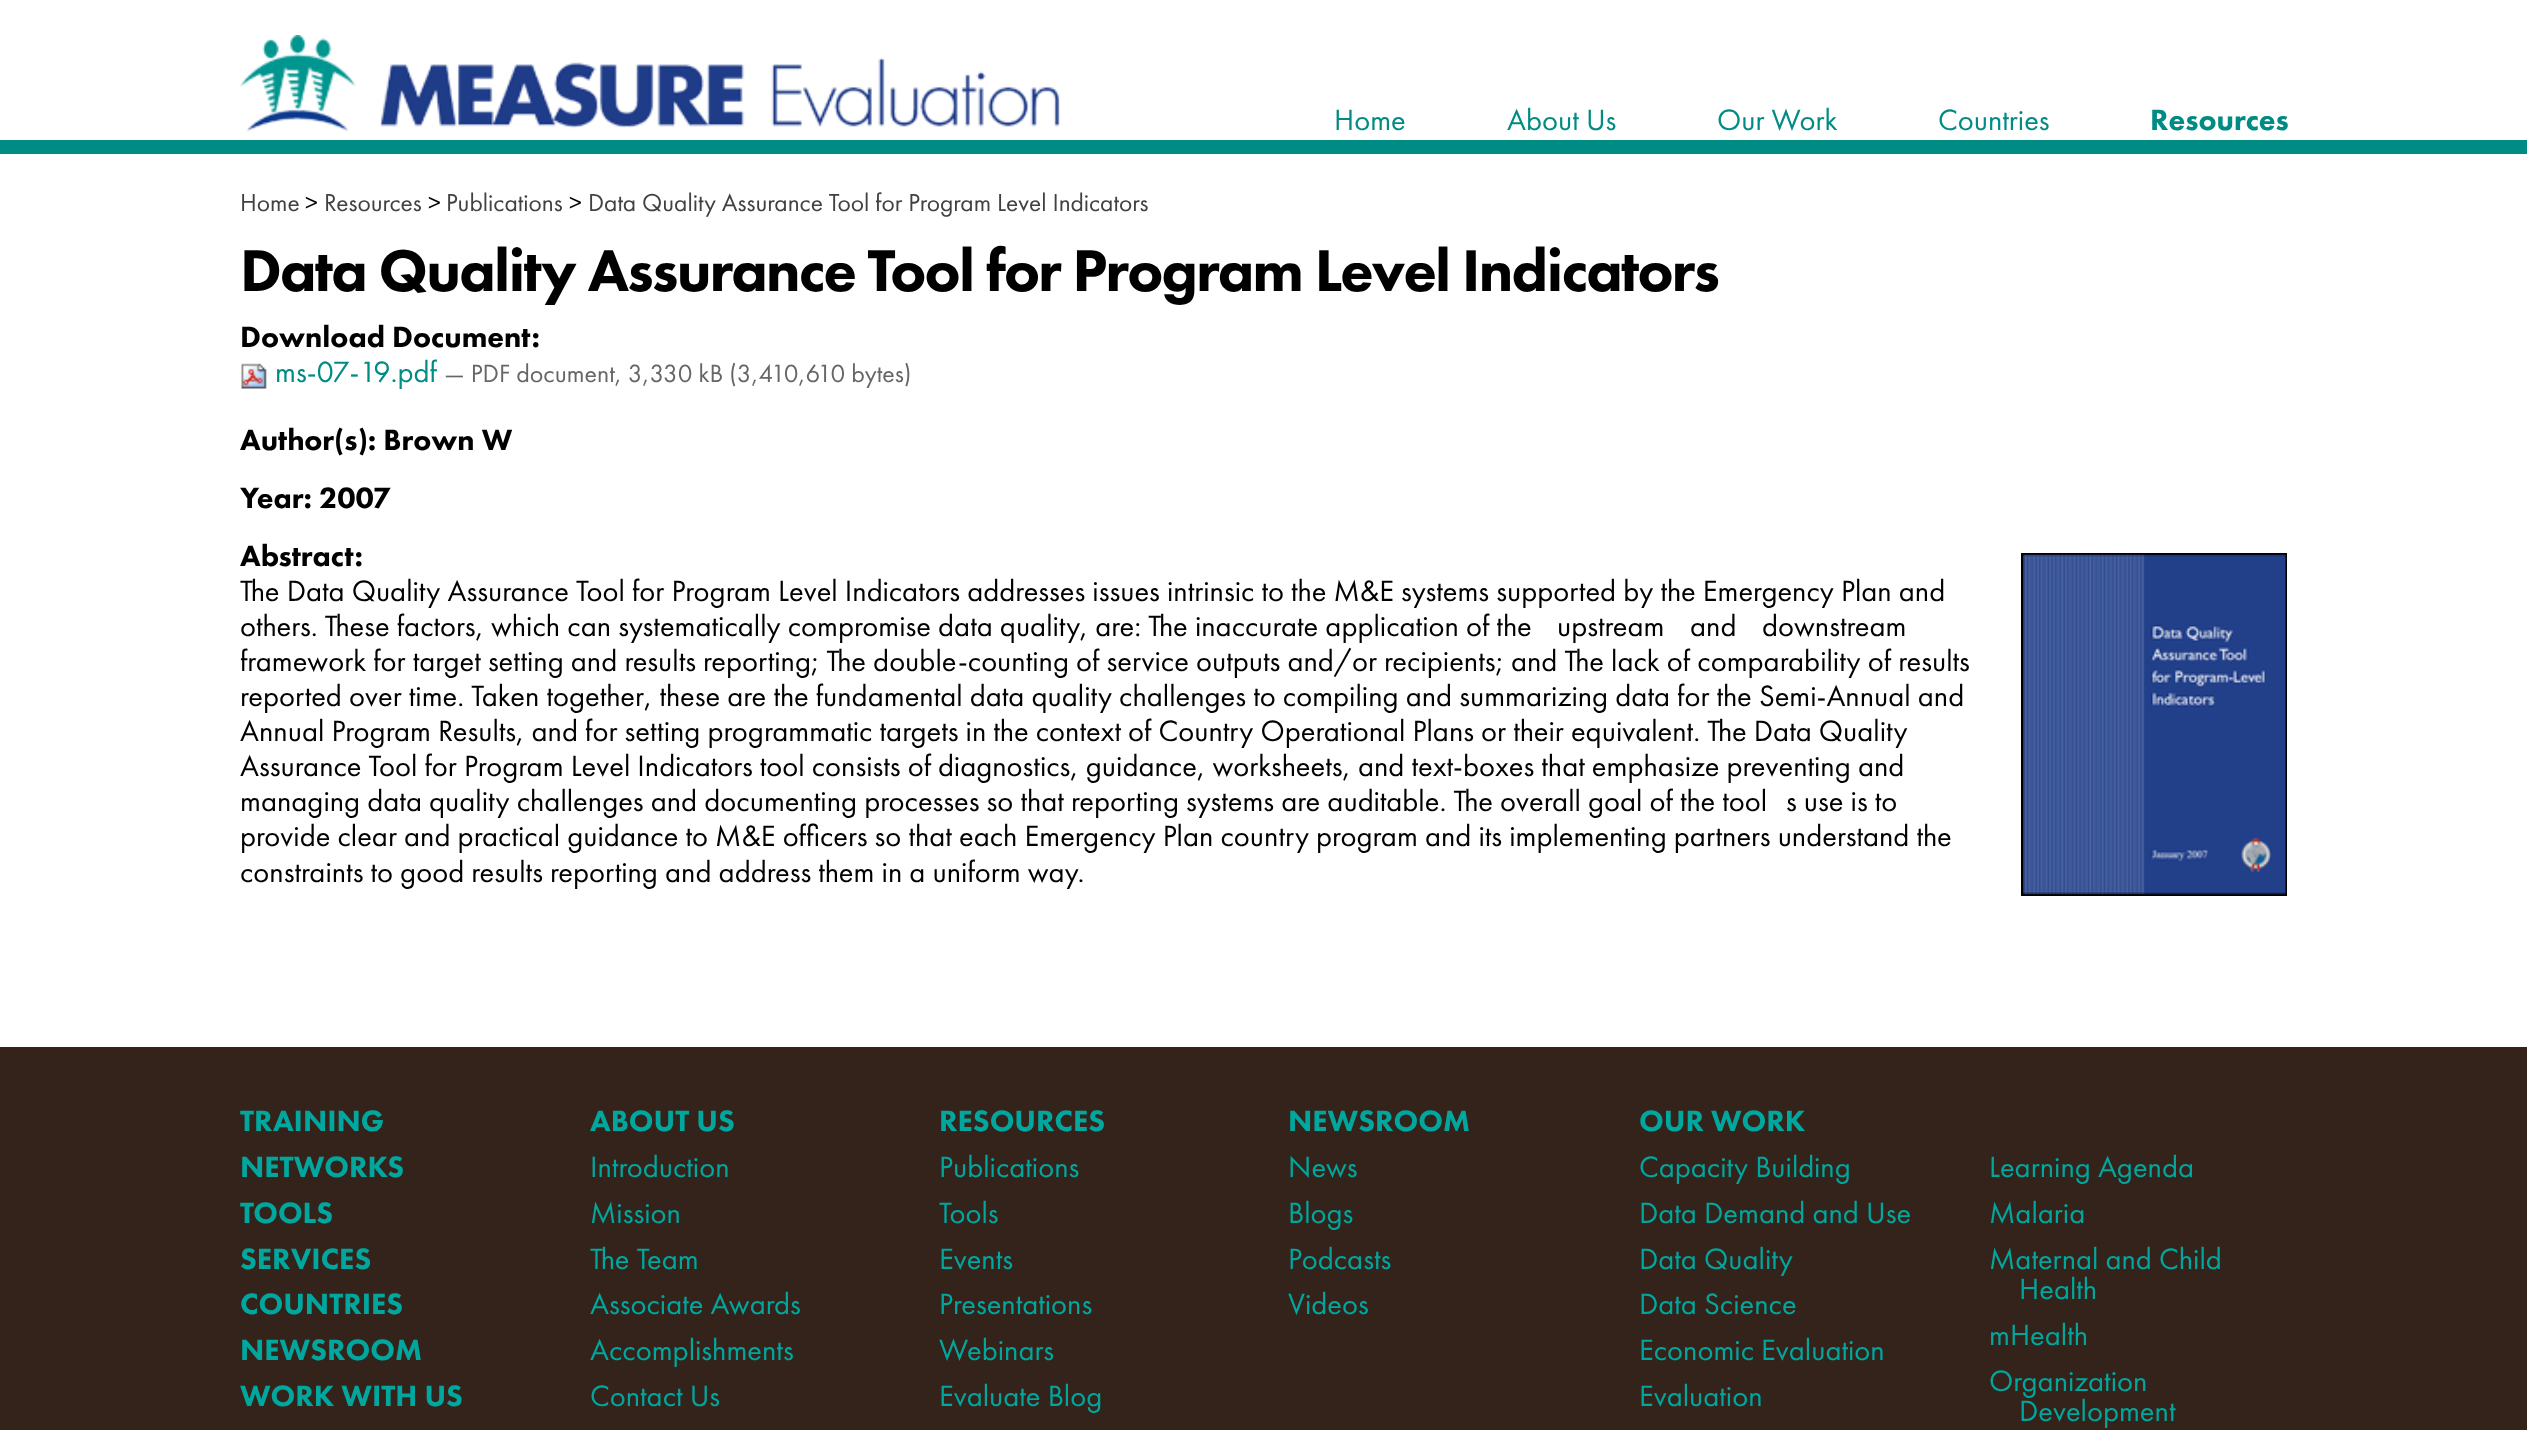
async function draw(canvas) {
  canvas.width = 2527
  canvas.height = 1430
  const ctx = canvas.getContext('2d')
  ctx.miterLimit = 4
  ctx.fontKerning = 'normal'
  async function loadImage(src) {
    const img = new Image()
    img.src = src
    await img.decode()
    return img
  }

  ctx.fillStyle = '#fff'
  ctx.fillRect(0, 0, 2527, 1430)
  ctx.fillStyle = '#008c84'
  ctx.fillRect(0, 140, 2527, 14)
  ctx.drawImage(await loadImage('image0.png'), 240, 35, 820, 97)
  ctx.font = '30.52px Futura PT'
  ctx.fillText('Home', 1334, 130)
  ctx.fillText('About Us', 1507, 130)
  ctx.fillText('Our Work', 1717, 130)
  ctx.fillText('Countries', 1938, 130)
  ctx.font = '900 30.52px Futura PT'
  ctx.fillText('Resources', 2150, 130)
  ctx.font = '25.4px Futura PT'
  ctx.fillStyle = '#414141'
  ctx.fillText('Home', 240, 211)
  ctx.fillStyle = '#000'
  ctx.fillText('>', 305, 211)
  ctx.fillStyle = '#414141'
  ctx.fillText('Resources', 324, 211)
  ctx.fillStyle = '#000'
  ctx.fillText('>', 428, 211)
  ctx.fillStyle = '#414141'
  ctx.fillText('Publications', 446, 211)
  ctx.fillStyle = '#000'
  ctx.fillText('>', 569, 211)
  ctx.fillStyle = '#414141'
  ctx.fillText('Data Quality Assurance Tool for Program Level Indicators', 588, 211)
  ctx.letterSpacing = '-1.75px'
  ctx.font = '900 61px Futura PT'
  ctx.fillStyle = '#000'
  ctx.fillText('Data Quality Assurance Tool for Program Level Indicators', 240, 291)
  ctx.letterSpacing = '0px'
  ctx.font = '900 30.52px Futura PT'
  ctx.fillText('Download Document:', 240, 347)
  ctx.drawImage(await loadImage('image1.png'), 241, 363, 26, 26)
  ctx.font = '30.52px Futura PT'
  ctx.fillStyle = '#008c84'
  ctx.fillText('ms-07-19.pdf', 275, 382)
  ctx.font = '25.9px Futura PT'
  ctx.fillStyle = '#666'
  ctx.fillText('— PDF document, 3,330 kB (3,410,610 bytes)', 444, 382)
  ctx.font = '900 30.52px Futura PT'
  ctx.fillStyle = '#000'
  ctx.fillText('Author(s): Brown W', 240, 450)
  ctx.fillText('Year: 2007', 240, 508)
  ctx.fillText('Abstract:', 240, 566)
  ctx.strokeStyle = '#000'
  ctx.lineWidth = 2
  ctx.strokeRect(2022, 554, 264, 341)
  ctx.drawImage(await loadImage('image2.png'), 2023, 554, 263, 341)
  ctx.font = '30.52px Futura PT'
  ctx.fillText('The Data Quality Assurance Tool for Program Level Indicators addresses issues intrinsic to the M&E systems supported by the Emergency Plan and', 240, 601)
  ctx.fillText('others. These factors, which can systematically compromise data quality, are: The inaccurate application of the', 240, 636)
  ctx.fillText('upstream', 1557, 636)
  ctx.fillText('and', 1690, 636)
  ctx.fillText('downstream', 1762, 636)
  ctx.fillText('framework for target setting and results reporting; The double-counting of service outputs and/or recipients; and The lack of comparability of results', 240, 671)
  ctx.fillText('reported over time. Taken together, these are the fundamental data quality challenges to compiling and summarizing data for the Semi-Annual and', 240, 706)
  ctx.fillText('Annual Program Results, and for setting programmatic targets in the context of Country Operational Plans or their equivalent. The Data Quality', 240, 741)
  ctx.fillText('Assurance Tool for Program Level Indicators tool consists of diagnostics, guidance, worksheets, and text-boxes that emphasize preventing and', 240, 776)
  ctx.fillText('managing data quality challenges and documenting processes so that reporting systems are auditable. The overall goal of the tool', 240, 811)
  ctx.fillText('s use is to', 1786, 811)
  ctx.fillText('provide clear and practical guidance to M&E officers so that each Emergency Plan country program and its implementing partners understand the', 240, 846)
  ctx.fillText('constraints to good results reporting and address them in a uniform way.', 240, 882)
  ctx.fillStyle = '#34231a'
  ctx.fillRect(0, 1047, 2527, 383)
  ctx.font = '900 30.52px Futura PT'
  ctx.fillStyle = '#00a79f'
  ctx.fillText('TRAINING', 240, 1131)
  ctx.fillText('NETWORKS', 240, 1177)
  ctx.fillText('TOOLS', 240, 1223)
  ctx.fillText('SERVICES', 240, 1269)
  ctx.fillText('COUNTRIES', 240, 1314)
  ctx.fillText('NEWSROOM', 240, 1360)
  ctx.fillText('WORK WITH US', 240, 1406)
  ctx.fillText('ABOUT US', 590, 1131)
  ctx.font = '30.52px Futura PT'
  ctx.fillText('Introduction', 590, 1177)
  ctx.fillText('Mission', 590, 1223)
  ctx.fillText('The Team', 590, 1269)
  ctx.fillText('Associate Awards', 590, 1314)
  ctx.fillText('Accomplishments', 590, 1360)
  ctx.fillText('Contact Us', 590, 1406)
  ctx.font = '900 30.52px Futura PT'
  ctx.fillText('RESOURCES', 939, 1131)
  ctx.font = '30.52px Futura PT'
  ctx.fillText('Publications', 939, 1177)
  ctx.fillText('Tools', 939, 1223)
  ctx.fillText('Events', 939, 1269)
  ctx.fillText('Presentations', 939, 1314)
  ctx.fillText('Webinars', 939, 1360)
  ctx.fillText('Evaluate Blog', 939, 1406)
  ctx.font = '900 30.52px Futura PT'
  ctx.fillText('NEWSROOM', 1288, 1131)
  ctx.font = '30.52px Futura PT'
  ctx.fillText('News', 1288, 1177)
  ctx.fillText('Blogs', 1288, 1223)
  ctx.fillText('Podcasts', 1288, 1269)
  ctx.fillText('Videos', 1288, 1314)
  ctx.font = '900 30.52px Futura PT'
  ctx.fillText('OUR WORK', 1639, 1131)
  ctx.font = '30.52px Futura PT'
  ctx.fillText('Capacity Building', 1639, 1177)
  ctx.fillText('Data Demand and Use', 1639, 1223)
  ctx.fillText('Data Quality', 1639, 1269)
  ctx.fillText('Data Science', 1639, 1314)
  ctx.fillText('Economic Evaluation', 1639, 1360)
  ctx.fillText('Evaluation', 1639, 1406)
  ctx.fillText('Learning Agenda', 1989, 1177)
  ctx.fillText('Malaria', 1989, 1223)
  ctx.fillText('Maternal and Child', 1989, 1269)
  ctx.fillText('Health', 2019, 1299)
  ctx.fillText('mHealth', 1989, 1345)
  ctx.fillText('Organization', 1989, 1391)
  ctx.fillText('Development', 2019, 1421)
}

draw(document.querySelector('canvas'))
